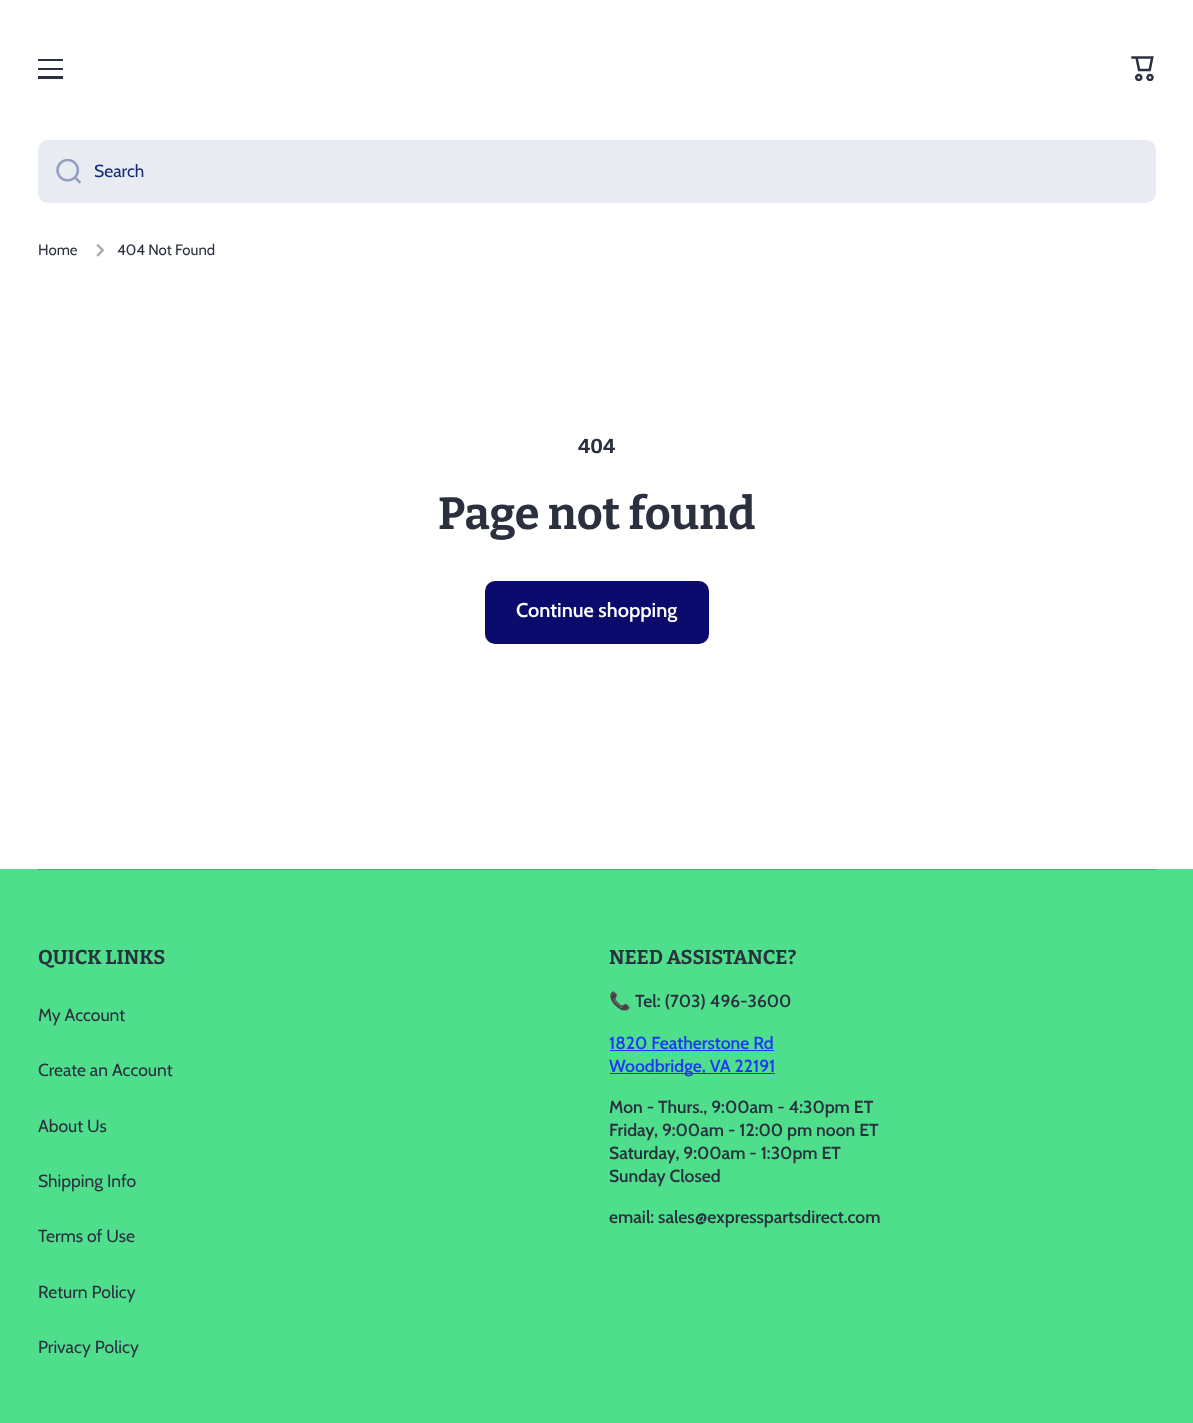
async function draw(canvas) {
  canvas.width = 1193
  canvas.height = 1423
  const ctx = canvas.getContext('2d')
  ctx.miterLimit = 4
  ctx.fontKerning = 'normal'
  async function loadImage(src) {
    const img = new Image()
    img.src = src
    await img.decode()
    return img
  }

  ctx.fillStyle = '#fff'
  ctx.fillRect(0, 0, 1193, 1423)
  ctx.fillStyle = '#2a303e'
  ctx.fillRect(38, 59, 25, 2)
  ctx.fillRect(38, 68, 25, 2)
  ctx.fillRect(38, 76, 25, 3)
  ctx.drawImage(await loadImage('image0.png'), 1131, 56, 23, 25)
  ctx.fillStyle = '#e9ebf2'
  ctx.beginPath()
  ctx.roundRect(38, 140, 1118, 63, 10)
  ctx.fill()
  ctx.drawImage(await loadImage('image1.png'), 56, 159, 25, 25)
  ctx.font = '17.5px Cabin'
  ctx.fillStyle = '#142c73'
  ctx.fillText('Search', 94, 177)
  ctx.font = '15px Cabin'
  ctx.fillStyle = '#2a303e'
  ctx.fillText('Home', 38, 255)
  ctx.drawImage(await loadImage('image2.png'), 96, 244, 9, 13)
  ctx.fillText('404 Not Found', 117, 255)
  ctx.font = 'bold 20px Bitter'
  ctx.fillText('404', 578, 453)
  ctx.font = 'bold 45px Bitter'
  ctx.fillText('Page not found', 438, 529)
  ctx.fillStyle = '#0b0b6e'
  ctx.beginPath()
  ctx.roundRect(485, 581, 224, 63, 10)
  ctx.fill()
  ctx.font = '600 20px Cabin'
  ctx.fillStyle = '#fff'
  ctx.fillText('Continue shopping', 516, 617)
  ctx.fillStyle = '#4fdf8c'
  ctx.fillRect(0, 869, 1193, 554)
  ctx.fillStyle = '#44aa75'
  ctx.fillRect(38, 869, 1118, 1)
  ctx.font = 'bold 20px Bitter'
  ctx.fillStyle = '#2a303e'
  ctx.fillText('QUICK LINKS', 38, 964)
  ctx.font = '17.5px Cabin'
  ctx.fillText('My Account', 38, 1021)
  ctx.fillText('Create an Account', 38, 1076)
  ctx.fillText('About Us', 38, 1132)
  ctx.fillText('Shipping Info', 38, 1187)
  ctx.fillText('Terms of Use', 38, 1242)
  ctx.fillText('Return Policy', 38, 1298)
  ctx.fillText('Privacy Policy', 38, 1353)
  ctx.font = 'bold 20px Bitter'
  ctx.fillText('NEED ASSISTANCE?', 609, 964)
  ctx.font = 'bold 17.5px Noto Color Emoji'
  ctx.fillText('📞', 609, 1007)
  ctx.font = '600 17.5px Cabin'
  ctx.fillText('Tel: (703) 496-3600', 635, 1007)
  ctx.fillStyle = '#1d38f6'
  ctx.fillText('1820 Featherstone Rd', 609, 1049)
  ctx.fillRect(610, 1050, 164, 1)
  ctx.fillRect(610, 1073, 165, 1)
  ctx.fillText('Woodbridge, VA 22191', 609, 1072)
  ctx.fillStyle = '#2a303e'
  ctx.fillText('Mon - Thurs., 9:00am - 4:30pm ET', 609, 1113)
  ctx.fillText('Friday, 9:00am - 12:00 pm noon ET', 609, 1136)
  ctx.fillText('Saturday, 9:00am - 1:30pm ET', 609, 1159)
  ctx.fillText('Sunday Closed', 609, 1182)
  ctx.fillText('email: sales@expresspartsdirect.com', 609, 1223)
}

draw(document.querySelector('canvas'))
